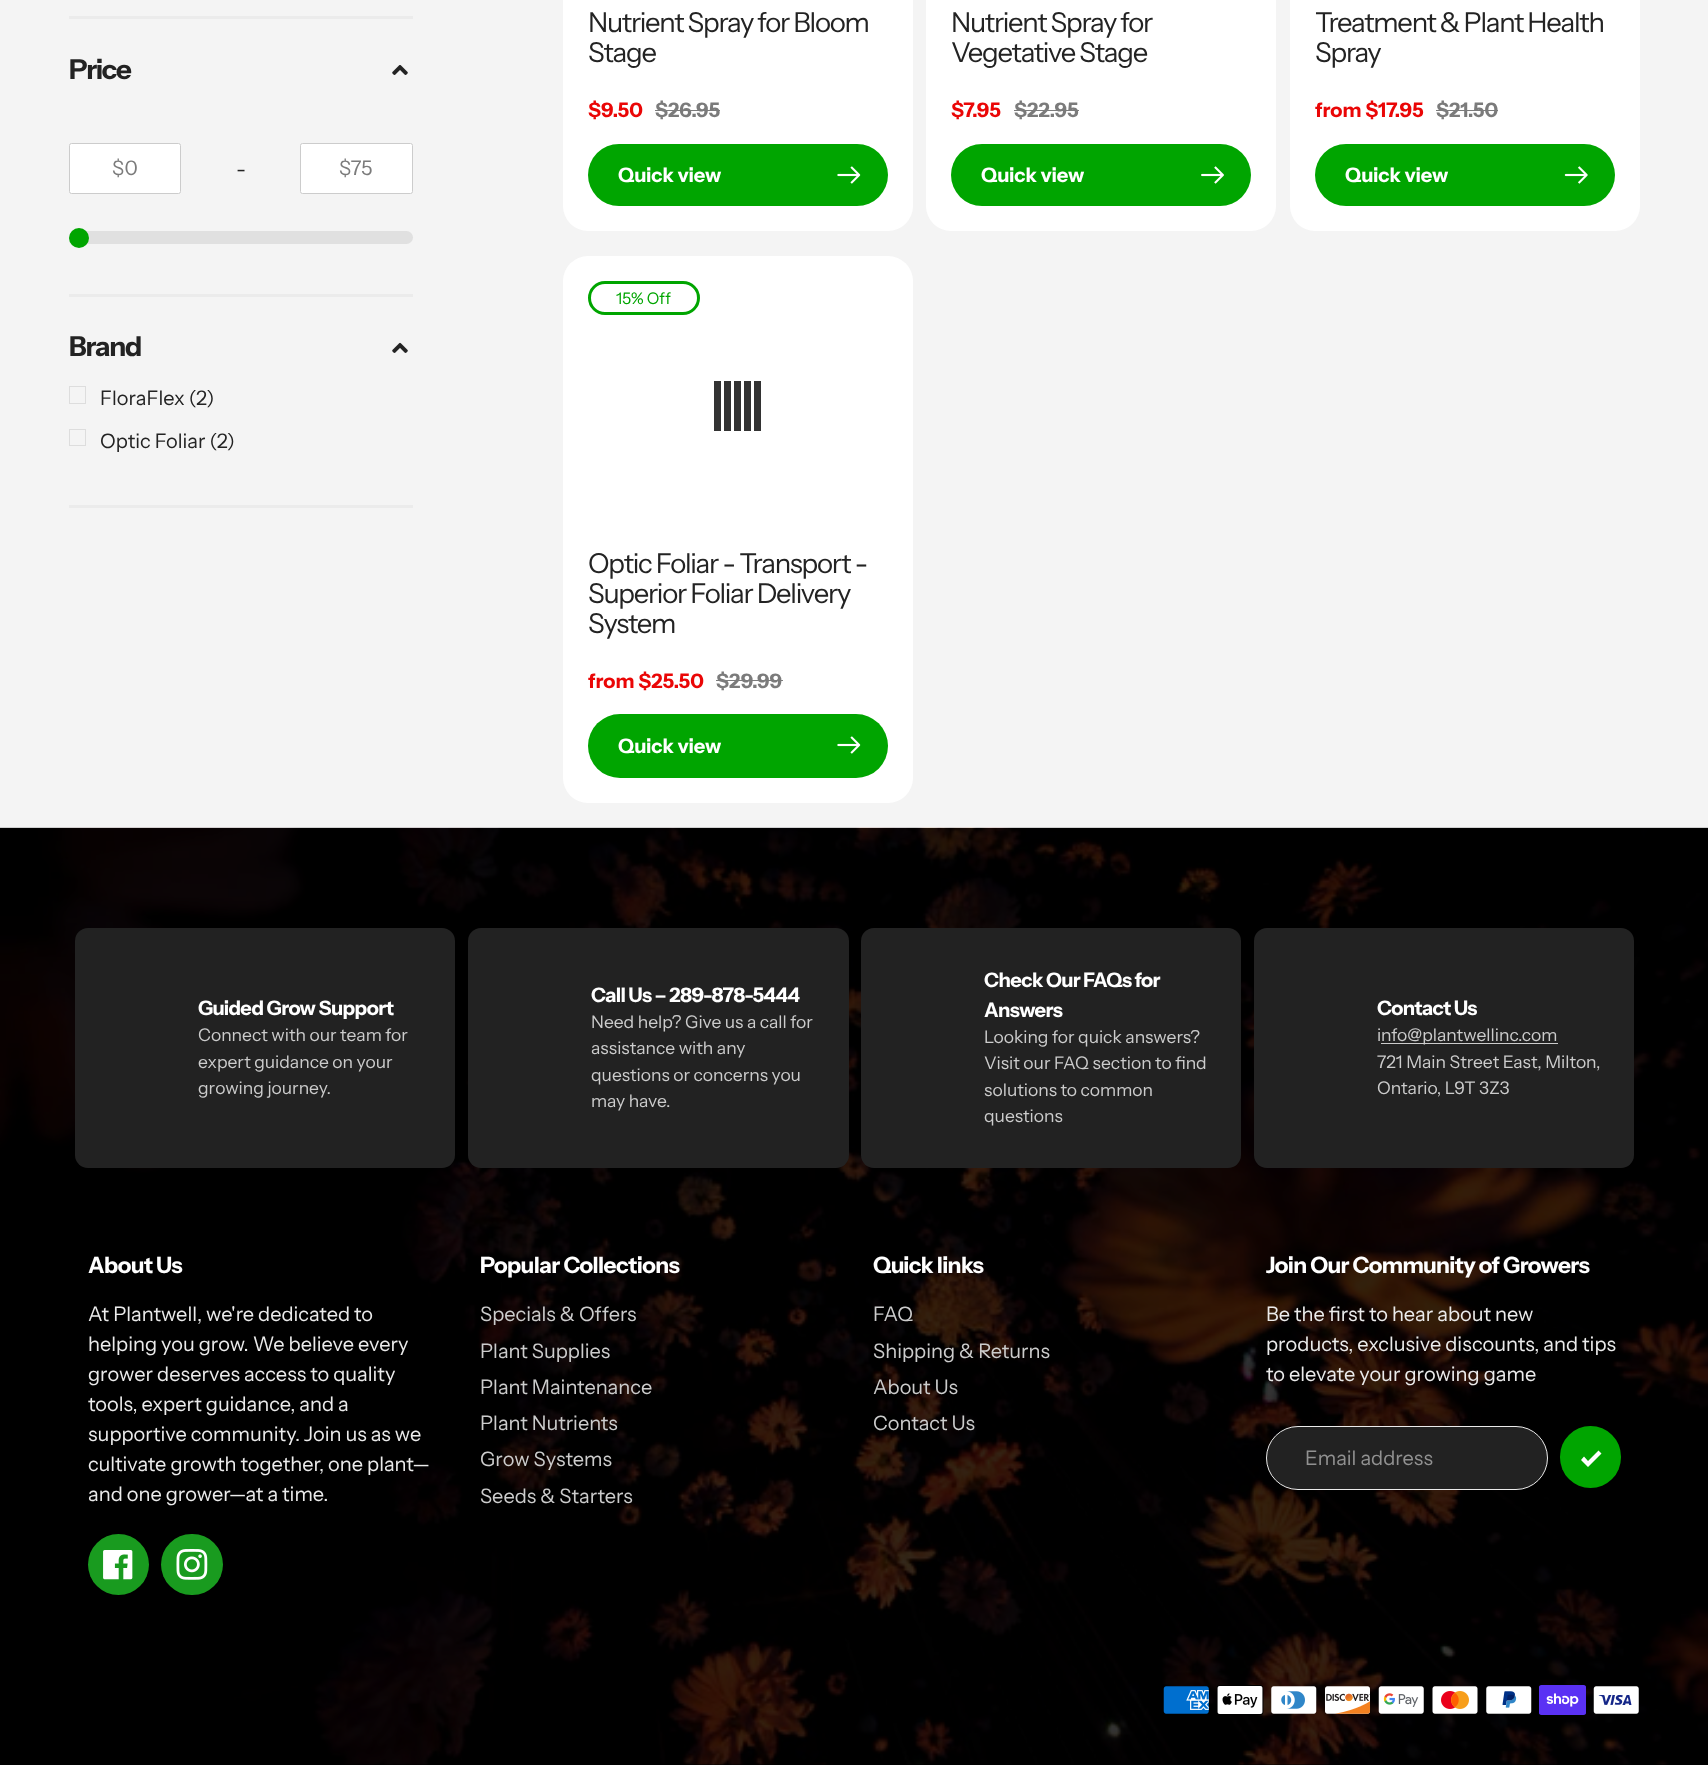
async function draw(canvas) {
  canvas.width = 1708
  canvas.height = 1765
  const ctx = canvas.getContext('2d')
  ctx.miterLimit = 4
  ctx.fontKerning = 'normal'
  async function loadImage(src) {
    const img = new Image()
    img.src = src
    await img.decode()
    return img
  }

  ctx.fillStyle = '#f4f4f4'
  ctx.fillRect(0, 0, 1708, 1765)
  ctx.fillStyle = '#ebebeb'
  ctx.fillRect(69, 16, 344, 3)
  ctx.fillRect(69, 294, 344, 3)
  ctx.letterSpacing = '-1.25px'
  ctx.font = 'bold 27.5px Instrument Sans'
  ctx.fillStyle = '#232323'
  ctx.fillText('Price', 69, 79)
  ctx.drawImage(await loadImage('image0.png'), 392, 65, 16, 10)
  ctx.fillStyle = '#fff'
  ctx.beginPath()
  ctx.roundRect(69.5, 143.5, 111, 50, 2)
  ctx.fill()
  ctx.strokeStyle = '#ccc'
  ctx.stroke()
  ctx.letterSpacing = '0px'
  ctx.font = '20px Instrument Sans'
  ctx.fillStyle = '#7b7b7b'
  ctx.fillText('$0', 112, 175)
  ctx.fillStyle = '#232323'
  ctx.fillText('-', 236, 176)
  ctx.fillStyle = '#fff'
  ctx.beginPath()
  ctx.roundRect(300.5, 143.5, 112, 50, 2)
  ctx.fill()
  ctx.stroke()
  ctx.fillStyle = '#7b7b7b'
  ctx.fillText('$75', 339, 175)
  ctx.fillStyle = '#e0e0e0'
  ctx.beginPath()
  ctx.roundRect(69, 231, 344, 13, 6.5)
  ctx.fill()
  ctx.fillStyle = '#00a500'
  ctx.beginPath()
  ctx.arc(79, 238, 10, 0, 2 * Math.PI)
  ctx.fill()
  ctx.fillStyle = '#ebebeb'
  ctx.fillRect(69, 505, 344, 3)
  ctx.letterSpacing = '-1.25px'
  ctx.font = 'bold 27.5px Instrument Sans'
  ctx.fillStyle = '#232323'
  ctx.fillText('Brand', 69, 356)
  ctx.drawImage(await loadImage('image1.png'), 392, 342, 16, 11)
  ctx.strokeStyle = '#ddd'
  ctx.strokeRect(69.5, 386.5, 16, 17)
  ctx.letterSpacing = '0px'
  ctx.font = '20px Instrument Sans'
  ctx.fillText('FloraFlex (2)', 100, 405)
  ctx.strokeRect(69.5, 429.5, 16, 16)
  ctx.fillText('Optic Foliar (2)', 100, 448)
  ctx.fillStyle = '#fff'
  ctx.beginPath()
  ctx.roundRect(563, -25, 350, 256, 25)
  ctx.fill()
  ctx.letterSpacing = '-1.25px'
  ctx.font = '27.5px Instrument Sans'
  ctx.fillStyle = '#232323'
  ctx.fillText('Nutrient Spray for Bloom', 588, 32)
  ctx.fillText('Stage', 588, 62)
  ctx.letterSpacing = '0px'
  ctx.font = 'bold 20px Instrument Sans'
  ctx.fillStyle = '#ea0606'
  ctx.fillText('$9.50', 588, 117)
  ctx.fillStyle = '#7b7b7b'
  ctx.fillText('$26.95', 655, 117)
  ctx.fillRect(655, 110, 65, 1)
  ctx.fillStyle = '#00a500'
  ctx.beginPath()
  ctx.roundRect(588, 144, 300, 62, 31)
  ctx.fill()
  ctx.fillStyle = '#fff'
  ctx.fillText('Quick view', 618, 182)
  ctx.drawImage(await loadImage('image2.png'), 837, 166, 24, 18)
  ctx.beginPath()
  ctx.roundRect(926, -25, 350, 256, 25)
  ctx.fill()
  ctx.letterSpacing = '-1.25px'
  ctx.font = '27.5px Instrument Sans'
  ctx.fillStyle = '#232323'
  ctx.fillText('Nutrient Spray for', 951, 32)
  ctx.fillText('Vegetative Stage', 951, 62)
  ctx.letterSpacing = '0px'
  ctx.font = 'bold 20px Instrument Sans'
  ctx.fillStyle = '#ea0606'
  ctx.fillText('$7.95', 951, 117)
  ctx.fillStyle = '#7b7b7b'
  ctx.fillText('$22.95', 1014, 117)
  ctx.fillRect(1014, 110, 65, 1)
  ctx.fillStyle = '#00a500'
  ctx.beginPath()
  ctx.roundRect(951, 144, 300, 62, 31)
  ctx.fill()
  ctx.fillStyle = '#fff'
  ctx.fillText('Quick view', 981, 182)
  ctx.drawImage(await loadImage('image3.png'), 1201, 166, 23, 18)
  ctx.beginPath()
  ctx.roundRect(1290, -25, 350, 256, 25)
  ctx.fill()
  ctx.letterSpacing = '-1.25px'
  ctx.font = '27.5px Instrument Sans'
  ctx.fillStyle = '#232323'
  ctx.fillText('Treatment & Plant Health', 1315, 32)
  ctx.fillText('Spray', 1315, 62)
  ctx.letterSpacing = '0px'
  ctx.font = 'bold 20px Instrument Sans'
  ctx.fillStyle = '#ea0606'
  ctx.fillText('from $17.95', 1315, 117)
  ctx.fillStyle = '#7b7b7b'
  ctx.fillText('$21.50', 1436, 117)
  ctx.fillRect(1436, 110, 62, 1)
  ctx.fillStyle = '#00a500'
  ctx.beginPath()
  ctx.roundRect(1315, 144, 300, 62, 31)
  ctx.fill()
  ctx.fillStyle = '#fff'
  ctx.fillText('Quick view', 1345, 182)
  ctx.drawImage(await loadImage('image4.png'), 1564, 166, 24, 18)
  ctx.beginPath()
  ctx.roundRect(563, 256, 350, 547, 25)
  ctx.fill()
  ctx.beginPath()
  ctx.roundRect(589.5, 282.5, 109, 31, 15.5)
  ctx.strokeStyle = '#00a500'
  ctx.lineWidth = 3
  ctx.stroke()
  ctx.font = '16px Instrument Sans'
  ctx.fillStyle = '#00a500'
  ctx.fillText('15% Off', 616, 304)
  ctx.fillStyle = '#333'
  ctx.fillRect(714, 381, 7, 50)
  ctx.fillRect(724, 381, 7, 50)
  ctx.fillRect(734, 381, 7, 50)
  ctx.fillRect(744, 381, 7, 50)
  ctx.fillRect(754, 381, 7, 50)
  ctx.letterSpacing = '-1.25px'
  ctx.font = '27.5px Instrument Sans'
  ctx.fillStyle = '#232323'
  ctx.fillText('Optic Foliar - Transport -', 588, 573)
  ctx.fillText('Superior Foliar Delivery', 588, 603)
  ctx.fillText('System', 588, 633)
  ctx.letterSpacing = '0px'
  ctx.font = 'bold 20px Instrument Sans'
  ctx.fillStyle = '#ea0606'
  ctx.fillText('from $25.50', 588, 688)
  ctx.fillStyle = '#7b7b7b'
  ctx.fillText('$29.99', 716, 688)
  ctx.fillRect(716, 680, 67, 1)
  ctx.fillStyle = '#00a500'
  ctx.beginPath()
  ctx.roundRect(588, 714, 300, 64, 32)
  ctx.fill()
  ctx.fillStyle = '#fff'
  ctx.fillText('Quick view', 618, 753)
  ctx.drawImage(await loadImage('image2.png'), 837, 736, 24, 18)
  ctx.fillStyle = '#000'
  ctx.fillRect(0, 828, 1708, 937)
  ctx.drawImage(await loadImage('image5.png'), 0, 827, 1708, 938)
  ctx.fillStyle = '#222'
  ctx.beginPath()
  ctx.roundRect(75, 928, 380, 240, 13)
  ctx.fill()
  ctx.letterSpacing = '-0.6px'
  ctx.fillStyle = '#fff'
  ctx.fillText('Guided Grow Support', 198, 1015)
  ctx.letterSpacing = '0px'
  ctx.font = '17.5px Instrument Sans'
  ctx.fillStyle = '#ccc'
  ctx.fillText('Connect with our team for', 198, 1041)
  ctx.fillText('expert guidance on your', 198, 1068)
  ctx.fillText('growing journey.', 198, 1094)
  ctx.fillStyle = '#222'
  ctx.beginPath()
  ctx.roundRect(468, 928, 381, 240, 13)
  ctx.fill()
  ctx.letterSpacing = '-0.6px'
  ctx.font = 'bold 20px Instrument Sans'
  ctx.fillStyle = '#fff'
  ctx.fillText('Call Us – 289-878-5444', 591, 1002)
  ctx.letterSpacing = '0px'
  ctx.font = '17.5px Instrument Sans'
  ctx.fillStyle = '#ccc'
  ctx.fillText('Need help? Give us a call for', 591, 1028)
  ctx.fillText('assistance with any', 591, 1054)
  ctx.fillText('questions or concerns you', 591, 1081)
  ctx.fillText('may have.', 591, 1107)
  ctx.fillStyle = '#222'
  ctx.beginPath()
  ctx.roundRect(861, 928, 380, 240, 13)
  ctx.fill()
  ctx.letterSpacing = '-0.6px'
  ctx.font = 'bold 20px Instrument Sans'
  ctx.fillStyle = '#fff'
  ctx.fillText('Check Our FAQs for', 984, 987)
  ctx.fillText('Answers', 984, 1017)
  ctx.letterSpacing = '0px'
  ctx.font = '17.5px Instrument Sans'
  ctx.fillStyle = '#ccc'
  ctx.fillText('Looking for quick answers?', 984, 1043)
  ctx.fillText('Visit our FAQ section to find', 984, 1069)
  ctx.fillText('solutions to common', 984, 1096)
  ctx.fillText('questions', 984, 1122)
  ctx.fillStyle = '#222'
  ctx.beginPath()
  ctx.roundRect(1254, 928, 380, 240, 13)
  ctx.fill()
  ctx.letterSpacing = '-0.6px'
  ctx.font = 'bold 20px Instrument Sans'
  ctx.fillStyle = '#fff'
  ctx.fillText('Contact Us', 1377, 1015)
  ctx.letterSpacing = '0px'
  ctx.font = '17.5px Instrument Sans'
  ctx.fillStyle = '#ccc'
  ctx.fillText('i', 1377, 1041)
  ctx.fillRect(1381, 1043, 177, 1)
  ctx.fillText('nfo@plantwellinc.com', 1381, 1041)
  ctx.fillText('721 Main Street East, Milton,', 1377, 1068)
  ctx.fillText('Ontario, L9T 3Z3', 1377, 1094)
  ctx.letterSpacing = '-0.6px'
  ctx.font = 'bold 22.5px Instrument Sans'
  ctx.fillStyle = '#fff'
  ctx.fillText('About Us', 88, 1273)
  ctx.letterSpacing = '0px'
  ctx.font = '20px Instrument Sans'
  ctx.fillStyle = '#ebebeb'
  ctx.fillText('At Plantwell, we\'re dedicated to', 88, 1321)
  ctx.fillText('helping you grow. We believe every', 88, 1351)
  ctx.fillText('grower deserves access to quality', 88, 1381)
  ctx.fillText('tools, expert guidance, and a', 88, 1411)
  ctx.fillText('supportive community. Join us as we', 88, 1441)
  ctx.fillText('cultivate growth together, one plant—', 88, 1471)
  ctx.fillText('and one grower—at a time.', 88, 1501)
  ctx.fillStyle = '#199b1f'
  ctx.beginPath()
  ctx.arc(118.5, 1564.5, 30.5, 0, 2 * Math.PI)
  ctx.fill()
  ctx.drawImage(await loadImage('image6.png'), 103, 1550, 30, 30)
  ctx.beginPath()
  ctx.roundRect(161, 1534, 62, 61, 30.5)
  ctx.fill()
  ctx.drawImage(await loadImage('image7.png'), 176, 1549, 32, 31)
  ctx.letterSpacing = '-0.6px'
  ctx.font = 'bold 22.5px Instrument Sans'
  ctx.fillStyle = '#fff'
  ctx.fillText('Popular Collections', 480, 1273)
  ctx.letterSpacing = '0px'
  ctx.font = '20px Instrument Sans'
  ctx.fillStyle = '#ccc'
  ctx.fillText('Specials & Offers', 480, 1321)
  ctx.fillText('Plant Supplies', 480, 1358)
  ctx.fillText('Plant Maintenance', 480, 1394)
  ctx.fillText('Plant Nutrients', 480, 1430)
  ctx.fillText('Grow Systems', 480, 1466)
  ctx.fillText('Seeds & Starters', 480, 1503)
  ctx.letterSpacing = '-0.6px'
  ctx.font = 'bold 22.5px Instrument Sans'
  ctx.fillStyle = '#fff'
  ctx.fillText('Quick links', 873, 1273)
  ctx.letterSpacing = '0px'
  ctx.font = '20px Instrument Sans'
  ctx.fillStyle = '#ccc'
  ctx.fillText('FAQ', 873, 1321)
  ctx.fillText('Shipping & Returns', 873, 1358)
  ctx.fillText('About Us', 873, 1394)
  ctx.fillText('Contact Us', 873, 1430)
  ctx.letterSpacing = '-0.6px'
  ctx.font = 'bold 22.5px Instrument Sans'
  ctx.fillStyle = '#fff'
  ctx.fillText('Join Our Community of Growers', 1266, 1273)
  ctx.letterSpacing = '0px'
  ctx.font = '20px Instrument Sans'
  ctx.fillStyle = '#ebebeb'
  ctx.fillText('Be the first to hear about new', 1266, 1321)
  ctx.fillText('products, exclusive discounts, and tips', 1266, 1351)
  ctx.fillText('to elevate your growing game', 1266, 1381)
  ctx.fillStyle = '#222'
  ctx.beginPath()
  ctx.roundRect(1266.5, 1426.5, 281, 63, 31.5)
  ctx.fill()
  ctx.strokeStyle = '#ebebeb'
  ctx.lineWidth = 1
  ctx.stroke()
  ctx.fillStyle = '#919191'
  ctx.fillText('Email address', 1305, 1465)
  ctx.fillStyle = '#00a500'
  ctx.beginPath()
  ctx.roundRect(1560, 1426, 61, 62, 30.5)
  ctx.fill()
  ctx.fillStyle = '#fff'
  ctx.beginPath()
  ctx.moveTo(1588, 1467)
  ctx.lineTo(1581, 1460)
  ctx.lineTo(1584, 1456.5)
  ctx.lineTo(1588, 1461)
  ctx.lineTo(1598.5, 1450.5)
  ctx.lineTo(1601.5, 1453.5)
  ctx.closePath()
  ctx.fill()
  ctx.drawImage(await loadImage('image8.png'), 1163, 1686, 46, 28)
  ctx.drawImage(await loadImage('image9.png'), 1216, 1685, 48, 30)
  ctx.drawImage(await loadImage('image10.png'), 1271, 1686, 46, 28)
  ctx.drawImage(await loadImage('image11.png'), 1325, 1686, 46, 28)
  ctx.drawImage(await loadImage('image12.png'), 1378, 1686, 46, 28)
  ctx.drawImage(await loadImage('image13.png'), 1432, 1686, 46, 28)
  ctx.drawImage(await loadImage('image14.png'), 1486, 1686, 46, 28)
  ctx.drawImage(await loadImage('image15.png'), 1539, 1685, 47, 30)
  ctx.drawImage(await loadImage('image16.png'), 1593, 1686, 46, 28)
}

draw(document.querySelector('canvas'))
